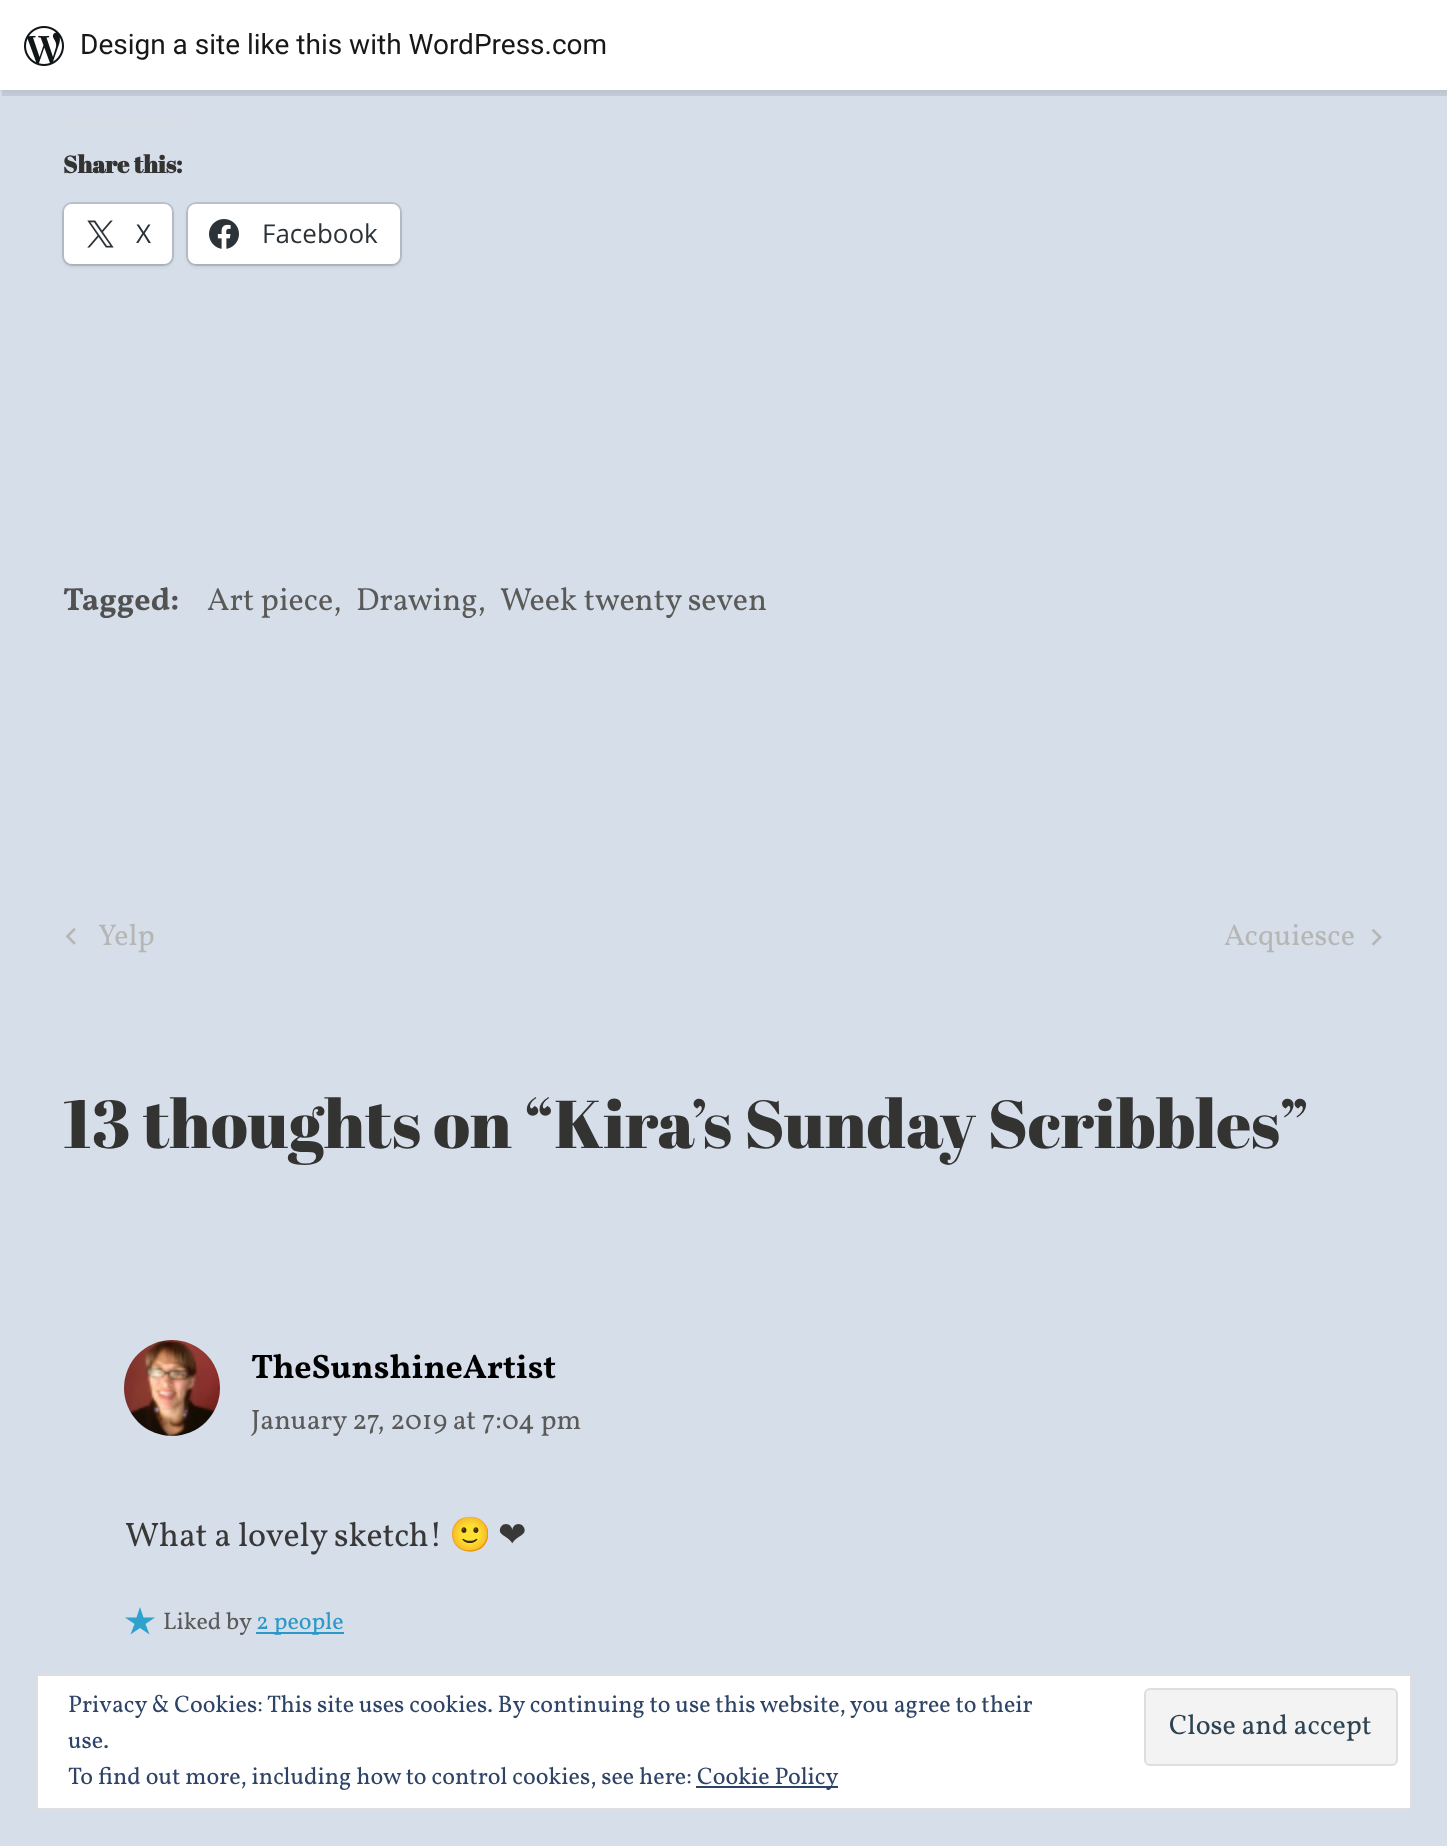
async function draw(canvas) {
  canvas.width = 1447
  canvas.height = 1846
  const ctx = canvas.getContext('2d')
  ctx.miterLimit = 4
  ctx.fontKerning = 'normal'
  async function loadImage(src) {
    const img = new Image()
    img.src = src
    await img.decode()
    return img
  }

  ctx.fillStyle = '#d6deea'
  ctx.fillRect(0, 0, 1447, 1846)
  ctx.fillStyle = '#0000000d'
  ctx.filter = 'blur(2px)'
  ctx.beginPath()
  ctx.rect(0, 2, 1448, 90)
  ctx.fill()
  ctx.filter = 'none'
  ctx.fillStyle = '#00000014'
  ctx.beginPath()
  ctx.moveTo(2, 90)
  ctx.lineTo(2, 96)
  ctx.lineTo(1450, 96)
  ctx.lineTo(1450, 6)
  ctx.lineTo(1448, 6)
  ctx.lineTo(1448, 90)
  ctx.closePath()
  ctx.fill()
  ctx.fillStyle = '#fff'
  ctx.fillRect(0, 0, 1447, 90)
  ctx.drawImage(await loadImage('image0.png'), 24, 26, 40, 40)
  ctx.font = '28px Roboto'
  ctx.fillStyle = '#171717'
  ctx.fillText('Design a site like this with WordPress.com', 80, 54)
  ctx.fillStyle = '#dcdcde'
  ctx.fillRect(64, 122, 118, 2)
  ctx.font = 'bold 24px Abril Fatface'
  ctx.fillStyle = '#333332'
  ctx.fillText('Share this:', 63, 173)
  ctx.beginPath()
  ctx.roundRect(63, 203, 110, 62, 9)
  ctx.strokeStyle = '#bcc3ce'
  ctx.lineWidth = 2
  ctx.stroke()
  ctx.fillStyle = '#0000001f'
  ctx.filter = 'blur(2px)'
  ctx.beginPath()
  ctx.roundRect(64, 206, 108, 60, 8)
  ctx.fill()
  ctx.filter = 'none'
  ctx.fillStyle = '#fff'
  ctx.beginPath()
  ctx.roundRect(64, 204, 108, 60, 8)
  ctx.fill()
  ctx.drawImage(await loadImage('image1.png'), 87, 220, 27, 28)
  ctx.font = '26px Open Sans'
  ctx.fillStyle = '#2c3338'
  ctx.fillText('X', 136, 243)
  ctx.beginPath()
  ctx.roundRect(187, 203, 214, 62, 9)
  ctx.stroke()
  ctx.fillStyle = '#0000001f'
  ctx.filter = 'blur(2px)'
  ctx.beginPath()
  ctx.roundRect(188, 206, 212, 60, 8)
  ctx.fill()
  ctx.filter = 'none'
  ctx.fillStyle = '#fff'
  ctx.beginPath()
  ctx.roundRect(188, 204, 212, 60, 8)
  ctx.fill()
  ctx.drawImage(await loadImage('image2.png'), 209, 219, 30, 30)
  ctx.fillStyle = '#2c3338'
  ctx.fillText('Facebook', 262, 243)
  ctx.font = 'bold 32px Vollkorn'
  ctx.fillStyle = '#515151'
  ctx.fillText('Tagged:', 63, 610)
  ctx.font = '32px Vollkorn'
  ctx.fillStyle = '#5a5a58'
  ctx.fillText('Art piece,', 207, 610)
  ctx.fillText('Drawing,', 356, 610)
  ctx.fillText('Week twenty seven', 500, 610)
  ctx.fillStyle = '#d8dee7'
  ctx.fillRect(64, 888, 1322, 2)
  ctx.fillRect(64, 988, 1322, 2)
  ctx.drawImage(await loadImage('image3.png'), 65, 928, 11, 17)
  ctx.font = '30px Vollkorn'
  ctx.fillStyle = '#b6b6b4'
  ctx.fillText('Yelp', 98, 945)
  ctx.fillText('Acquiesce', 1224, 945)
  ctx.drawImage(await loadImage('image4.png'), 1371, 929, 11, 17)
  ctx.font = '67.6px Abril Fatface'
  ctx.fillStyle = '#333332'
  ctx.fillText('13 thoughts on “', 63, 1148)
  ctx.fillText('Kira’s Sunday Scribbles', 554, 1148)
  ctx.fillText('”', 1279, 1148)
  ctx.fillStyle = '#d8dee7'
  ctx.beginPath()
  ctx.moveTo(64, 1278)
  ctx.lineTo(1386, 1278)
  ctx.lineTo(1386, 1280)
  ctx.lineTo(66, 1280)
  ctx.closePath()
  ctx.fill()
  ctx.beginPath()
  ctx.moveTo(64, 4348)
  ctx.lineTo(64, 1278)
  ctx.lineTo(66, 1280)
  ctx.lineTo(66, 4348)
  ctx.closePath()
  ctx.fill()
  ctx.drawImage(await loadImage('image5.png'), 124, 1340, 96, 96)
  ctx.font = 'bold 34px Vollkorn'
  ctx.fillStyle = '#000'
  ctx.fillText('TheSunshineArtist', 251, 1378)
  ctx.font = '28px Vollkorn'
  ctx.fillStyle = '#5a5a58'
  ctx.fillText('January 27, 2019 at 7:04 pm', 251, 1429)
  ctx.font = '34px Vollkorn'
  ctx.fillStyle = '#383838'
  ctx.fillText('What a lovely sketch!', 125, 1546)
  ctx.font = '34px Noto Color Emoji'
  ctx.fillText('🙂', 449, 1546)
  ctx.font = '34px DejaVu Sans'
  ctx.fillText('❤', 498, 1546)
  ctx.fillStyle = '#2ea2cc'
  ctx.beginPath()
  ctx.moveTo(155, 1617.5)
  ctx.lineTo(145.5, 1624)
  ctx.lineTo(149.5, 1634.5)
  ctx.lineTo(140, 1628)
  ctx.lineTo(130.5, 1634.5)
  ctx.lineTo(134.5, 1624)
  ctx.lineTo(125, 1617.5)
  ctx.lineTo(136.5, 1617.5)
  ctx.lineTo(140, 1607)
  ctx.lineTo(143.5, 1617.5)
  ctx.closePath()
  ctx.fill()
  ctx.font = '24px Vollkorn'
  ctx.fillStyle = '#5a5a58'
  ctx.fillText('Liked by', 163, 1629)
  ctx.fillStyle = '#2b98c7'
  ctx.fillRect(256, 1632, 88, 2)
  ctx.fillText('2 people', 256, 1629)
  ctx.fillStyle = '#d8dee7'
  ctx.beginPath()
  ctx.moveTo(122, 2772)
  ctx.lineTo(122, 1788)
  ctx.lineTo(124, 1790)
  ctx.lineTo(124, 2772)
  ctx.closePath()
  ctx.fill()
  ctx.fillStyle = '#fff'
  ctx.beginPath()
  ctx.rect(37, 1675, 1374, 134)
  ctx.fill()
  ctx.strokeStyle = '#dedede'
  ctx.stroke()
  ctx.fillStyle = '#2e4467'
  ctx.fillText('Privacy & Cookies: This site uses cookies. By continuing to use this website, you agree to their', 68, 1712)
  ctx.fillStyle = '#f3f3f3'
  ctx.beginPath()
  ctx.roundRect(1145, 1689, 252, 76, 5)
  ctx.fill()
  ctx.stroke()
  ctx.font = '28px Vollkorn'
  ctx.fillStyle = '#2e4453'
  ctx.fillText('Close and accept', 1169, 1734)
  ctx.font = '24px Vollkorn'
  ctx.fillStyle = '#2e4467'
  ctx.fillText('use.', 68, 1748)
  ctx.fillText('To find out more, including how to control cookies, see here:', 68, 1784)
  ctx.fillRect(696, 1786, 142, 2)
  ctx.fillText('Cookie Policy', 697, 1784)
}

draw(document.querySelector('canvas'))
